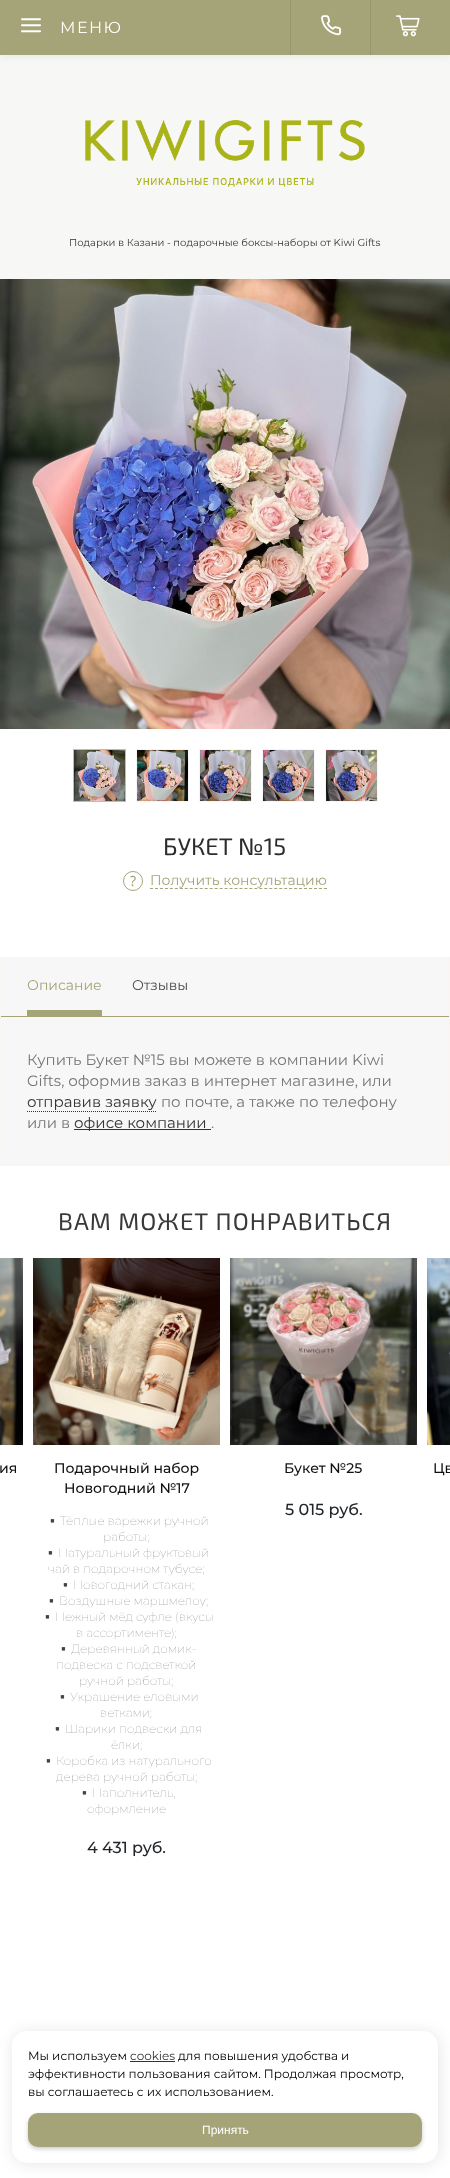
async function draw(canvas) {
  canvas.width = 450
  canvas.height = 2178
  const ctx = canvas.getContext('2d')
  ctx.miterLimit = 4
  ctx.fontKerning = 'normal'
  async function loadImage(src) {
    const img = new Image()
    img.src = src
    await img.decode()
    return img
  }

  ctx.fillStyle = '#fff'
  ctx.fillRect(0, 0, 450, 2178)
  ctx.fillStyle = '#f7f7f5'
  ctx.fillRect(0, 55, 450, 224)
  ctx.fillStyle = '#100f1c12'
  ctx.filter = 'blur(5px)'
  ctx.beginPath()
  ctx.rect(-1, -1, 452, 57)
  ctx.fill()
  ctx.filter = 'none'
  ctx.fillStyle = '#a5a478'
  ctx.fillRect(0, 0, 450, 55)
  ctx.drawImage(await loadImage('image0.png'), 21, 18, 20, 15)
  ctx.letterSpacing = '1.5px'
  ctx.font = '16px Montserrat'
  ctx.fillStyle = '#fff'
  ctx.fillText('МЕНЮ', 60, 33)
  ctx.fillStyle = '#97976f'
  ctx.fillRect(290, 0, 1, 55)
  ctx.drawImage(await loadImage('image1.png'), 321, 15, 21, 21)
  ctx.fillRect(370, 0, 1, 55)
  ctx.drawImage(await loadImage('image2.png'), 396, 15, 24, 22)
  ctx.drawImage(await loadImage('image3.png'), 85, 120, 280, 67)
  ctx.letterSpacing = '0px'
  ctx.font = '10px Montserrat'
  ctx.fillStyle = '#333'
  ctx.fillText('Подарки в Казани - подарочные боксы-наборы от Kiwi Gifts', 69, 246)
  ctx.drawImage(await loadImage('image4.png'), 0, 279, 450, 450)
  ctx.strokeStyle = '#bebbbf'
  ctx.strokeRect(73.5, 749.5, 52, 52)
  ctx.drawImage(await loadImage('image5.png'), 74, 750, 51, 51)
  ctx.strokeStyle = '#f4f5fa'
  ctx.strokeRect(136.5, 749.5, 52, 52)
  ctx.drawImage(await loadImage('image6.png'), 137, 750, 51, 51)
  ctx.strokeRect(199.5, 749.5, 52, 52)
  ctx.drawImage(await loadImage('image7.png'), 200, 750, 51, 51)
  ctx.strokeRect(262.5, 749.5, 52, 52)
  ctx.drawImage(await loadImage('image8.png'), 263, 750, 51, 51)
  ctx.strokeRect(325.5, 749.5, 52, 52)
  ctx.drawImage(await loadImage('image9.png'), 326, 750, 51, 51)
  ctx.font = '24px "Exo 2"'
  ctx.fillStyle = '#2d2b2e'
  ctx.fillText('БУКЕТ №15', 163, 855)
  ctx.beginPath()
  ctx.arc(133, 881, 9.5, 0, 2 * Math.PI)
  ctx.strokeStyle = '#a5a478'
  ctx.stroke()
  ctx.font = '14px Noto Sans'
  ctx.fillStyle = '#a5a478'
  ctx.fillText('?', 130, 886)
  ctx.beginPath()
  ctx.moveTo(150, 888.5)
  ctx.lineTo(327, 888.5)
  ctx.setLineDash([3, 1.97])
  ctx.stroke()
  ctx.font = '14px Montserrat'
  ctx.fillText('Получить консультацию', 150, 885)
  ctx.strokeStyle = '#f9f5f1'
  ctx.setLineDash([])
  ctx.strokeRect(0.5, 957.5, 449, 208)
  ctx.fillStyle = '#f7f7f7'
  ctx.fillRect(1, 958, 448, 58)
  ctx.fillStyle = '#a5a478'
  ctx.fillRect(1, 1016, 448, 1)
  ctx.fillText('Описание', 27, 990)
  ctx.fillStyle = '#4b4b4b'
  ctx.fillText('Отзывы', 132, 990)
  ctx.fillStyle = '#a5a478'
  ctx.fillRect(27, 1010, 75, 6)
  ctx.fillStyle = '#f7f7f7'
  ctx.fillRect(1, 1017, 448, 148)
  ctx.font = '15px Montserrat'
  ctx.fillStyle = '#757576'
  ctx.fillText('Купить Букет №15 вы можете в компании Kiwi', 27, 1065)
  ctx.fillText('Gifts, оформив заказ в интернет магазине, или', 27, 1086)
  ctx.fillStyle = '#333'
  ctx.fillText('отправив заявку', 27, 1107)
  ctx.beginPath()
  ctx.moveTo(27, 1111.5)
  ctx.lineTo(157, 1111.5)
  ctx.strokeStyle = '#333'
  ctx.setLineDash([1, 1])
  ctx.stroke()
  ctx.fillStyle = '#757576'
  ctx.fillText('по почте, а также по телефону', 161, 1107)
  ctx.fillText('или в', 27, 1128)
  ctx.fillStyle = '#333'
  ctx.fillRect(74, 1129, 137, 1)
  ctx.fillText('офисе компании', 74, 1128)
  ctx.fillStyle = '#757576'
  ctx.fillText('.', 211, 1128)
  ctx.letterSpacing = '1px'
  ctx.font = '24px "Exo 2"'
  ctx.fillStyle = '#393939'
  ctx.fillText('ВАМ МОЖЕТ ПОНРАВИТЬСЯ', 58, 1230)
  ctx.drawImage(await loadImage('image10.png'), 0, 1258, 23, 187)
  ctx.letterSpacing = '0px'
  ctx.font = '500 14px Montserrat'
  ctx.fillStyle = '#121212'
  ctx.fillText('ия', -1, 1473)
  ctx.drawImage(await loadImage('image11.png'), 33, 1258, 187, 187)
  ctx.fillText('Подарочный набор', 54, 1473)
  ctx.fillText('Новогодний №17', 64, 1493)
  ctx.font = '12px Noto Color Emoji'
  ctx.fillStyle = '#7f7f7f'
  ctx.fillText('▪️', 45, 1525)
  ctx.font = '100 12px Montserrat'
  ctx.fillText('Тёплые варежки ручной', 60, 1525)
  ctx.fillText('работы;', 103, 1541)
  ctx.font = '12px Noto Color Emoji'
  ctx.fillText('▪️', 43, 1557)
  ctx.font = '100 12px Montserrat'
  ctx.fillText('Натуральный фруктовый', 58, 1557)
  ctx.fillText('чай в подарочном тубусе;', 48, 1573)
  ctx.font = '12px Noto Color Emoji'
  ctx.fillText('▪️', 58, 1589)
  ctx.font = '100 12px Montserrat'
  ctx.fillText('Новогодний стакан;', 73, 1589)
  ctx.font = '12px Noto Color Emoji'
  ctx.fillText('▪️', 44, 1605)
  ctx.font = '100 12px Montserrat'
  ctx.fillText('Воздушные маршмелоу;', 59, 1605)
  ctx.font = '12px Noto Color Emoji'
  ctx.fillText('▪️', 40, 1621)
  ctx.font = '100 12px Montserrat'
  ctx.fillText('Нежный мёд суфле (вкусы', 55, 1621)
  ctx.fillText('в ассортименте);', 76, 1637)
  ctx.font = '12px Noto Color Emoji'
  ctx.fillText('▪️', 56, 1653)
  ctx.font = '100 12px Montserrat'
  ctx.fillText('Деревянный домик-', 71, 1653)
  ctx.fillText('подвеска с подсветкой', 56, 1669)
  ctx.fillText('ручной работы;', 79, 1685)
  ctx.font = '12px Noto Color Emoji'
  ctx.fillText('▪️', 55, 1701)
  ctx.font = '100 12px Montserrat'
  ctx.fillText('Украшение еловыми', 70, 1701)
  ctx.fillText('ветками;', 100, 1717)
  ctx.font = '12px Noto Color Emoji'
  ctx.fillText('▪️', 50, 1733)
  ctx.font = '100 12px Montserrat'
  ctx.fillText('Шарики подвески для', 65, 1733)
  ctx.fillText('ёлки;', 111, 1749)
  ctx.font = '12px Noto Color Emoji'
  ctx.fillText('▪️', 41, 1765)
  ctx.font = '100 12px Montserrat'
  ctx.fillText('Коробка из натурального', 56, 1765)
  ctx.fillText('дерева ручной работы;', 56, 1781)
  ctx.font = '12px Noto Color Emoji'
  ctx.fillText('▪️', 77, 1797)
  ctx.font = '100 12px Montserrat'
  ctx.fillText('Наполнитель,', 92, 1797)
  ctx.fillText('оформление', 87, 1813)
  ctx.font = '500 16px Montserrat'
  ctx.fillStyle = '#212529'
  ctx.fillText('4 431 руб.', 87, 1853)
  ctx.drawImage(await loadImage('image12.png'), 230, 1258, 187, 187)
  ctx.font = '500 14px Montserrat'
  ctx.fillStyle = '#121212'
  ctx.fillText('Букет №25', 284, 1473)
  ctx.font = '500 16px Montserrat'
  ctx.fillStyle = '#212529'
  ctx.fillText('5 015 руб.', 285, 1515)
  ctx.drawImage(await loadImage('image13.png'), 427, 1258, 23, 187)
  ctx.font = '500 14px Montserrat'
  ctx.fillStyle = '#121212'
  ctx.fillText('Цв', 433, 1473)
  ctx.fillStyle = '#0000001a'
  ctx.filter = 'blur(7.5px)'
  ctx.beginPath()
  ctx.roundRect(13, 2032, 426, 132, 15)
  ctx.fill()
  ctx.filter = 'none'
  ctx.fillStyle = '#fff'
  ctx.beginPath()
  ctx.roundRect(12, 2031, 426, 132, 15)
  ctx.fill()
  ctx.font = '12px Montserrat'
  ctx.fillStyle = '#000'
  ctx.fillText('Мы используем', 28, 2060)
  ctx.fillStyle = '#333'
  ctx.fillText('cookies', 130, 2060)
  ctx.fillRect(130, 2061, 45, 1)
  ctx.fillStyle = '#000'
  ctx.fillText('для повышения удобства и', 178, 2060)
  ctx.fillText('эффективности пользования сайтом. Продолжая просмотр,', 28, 2078)
  ctx.fillText('вы соглашаетесь с их использованием.', 28, 2096)
  ctx.fillStyle = '#00000033'
  ctx.filter = 'blur(2px)'
  ctx.beginPath()
  ctx.roundRect(28, 2115, 394, 34, 10)
  ctx.fill()
  ctx.filter = 'none'
  ctx.fillStyle = '#a5a478'
  ctx.beginPath()
  ctx.roundRect(28, 2113, 394, 34, 10)
  ctx.fill()
  ctx.font = '12px Liberation Sans'
  ctx.fillStyle = '#fff'
  ctx.fillText('Принять', 202, 2134)
}

draw(document.querySelector('canvas'))
